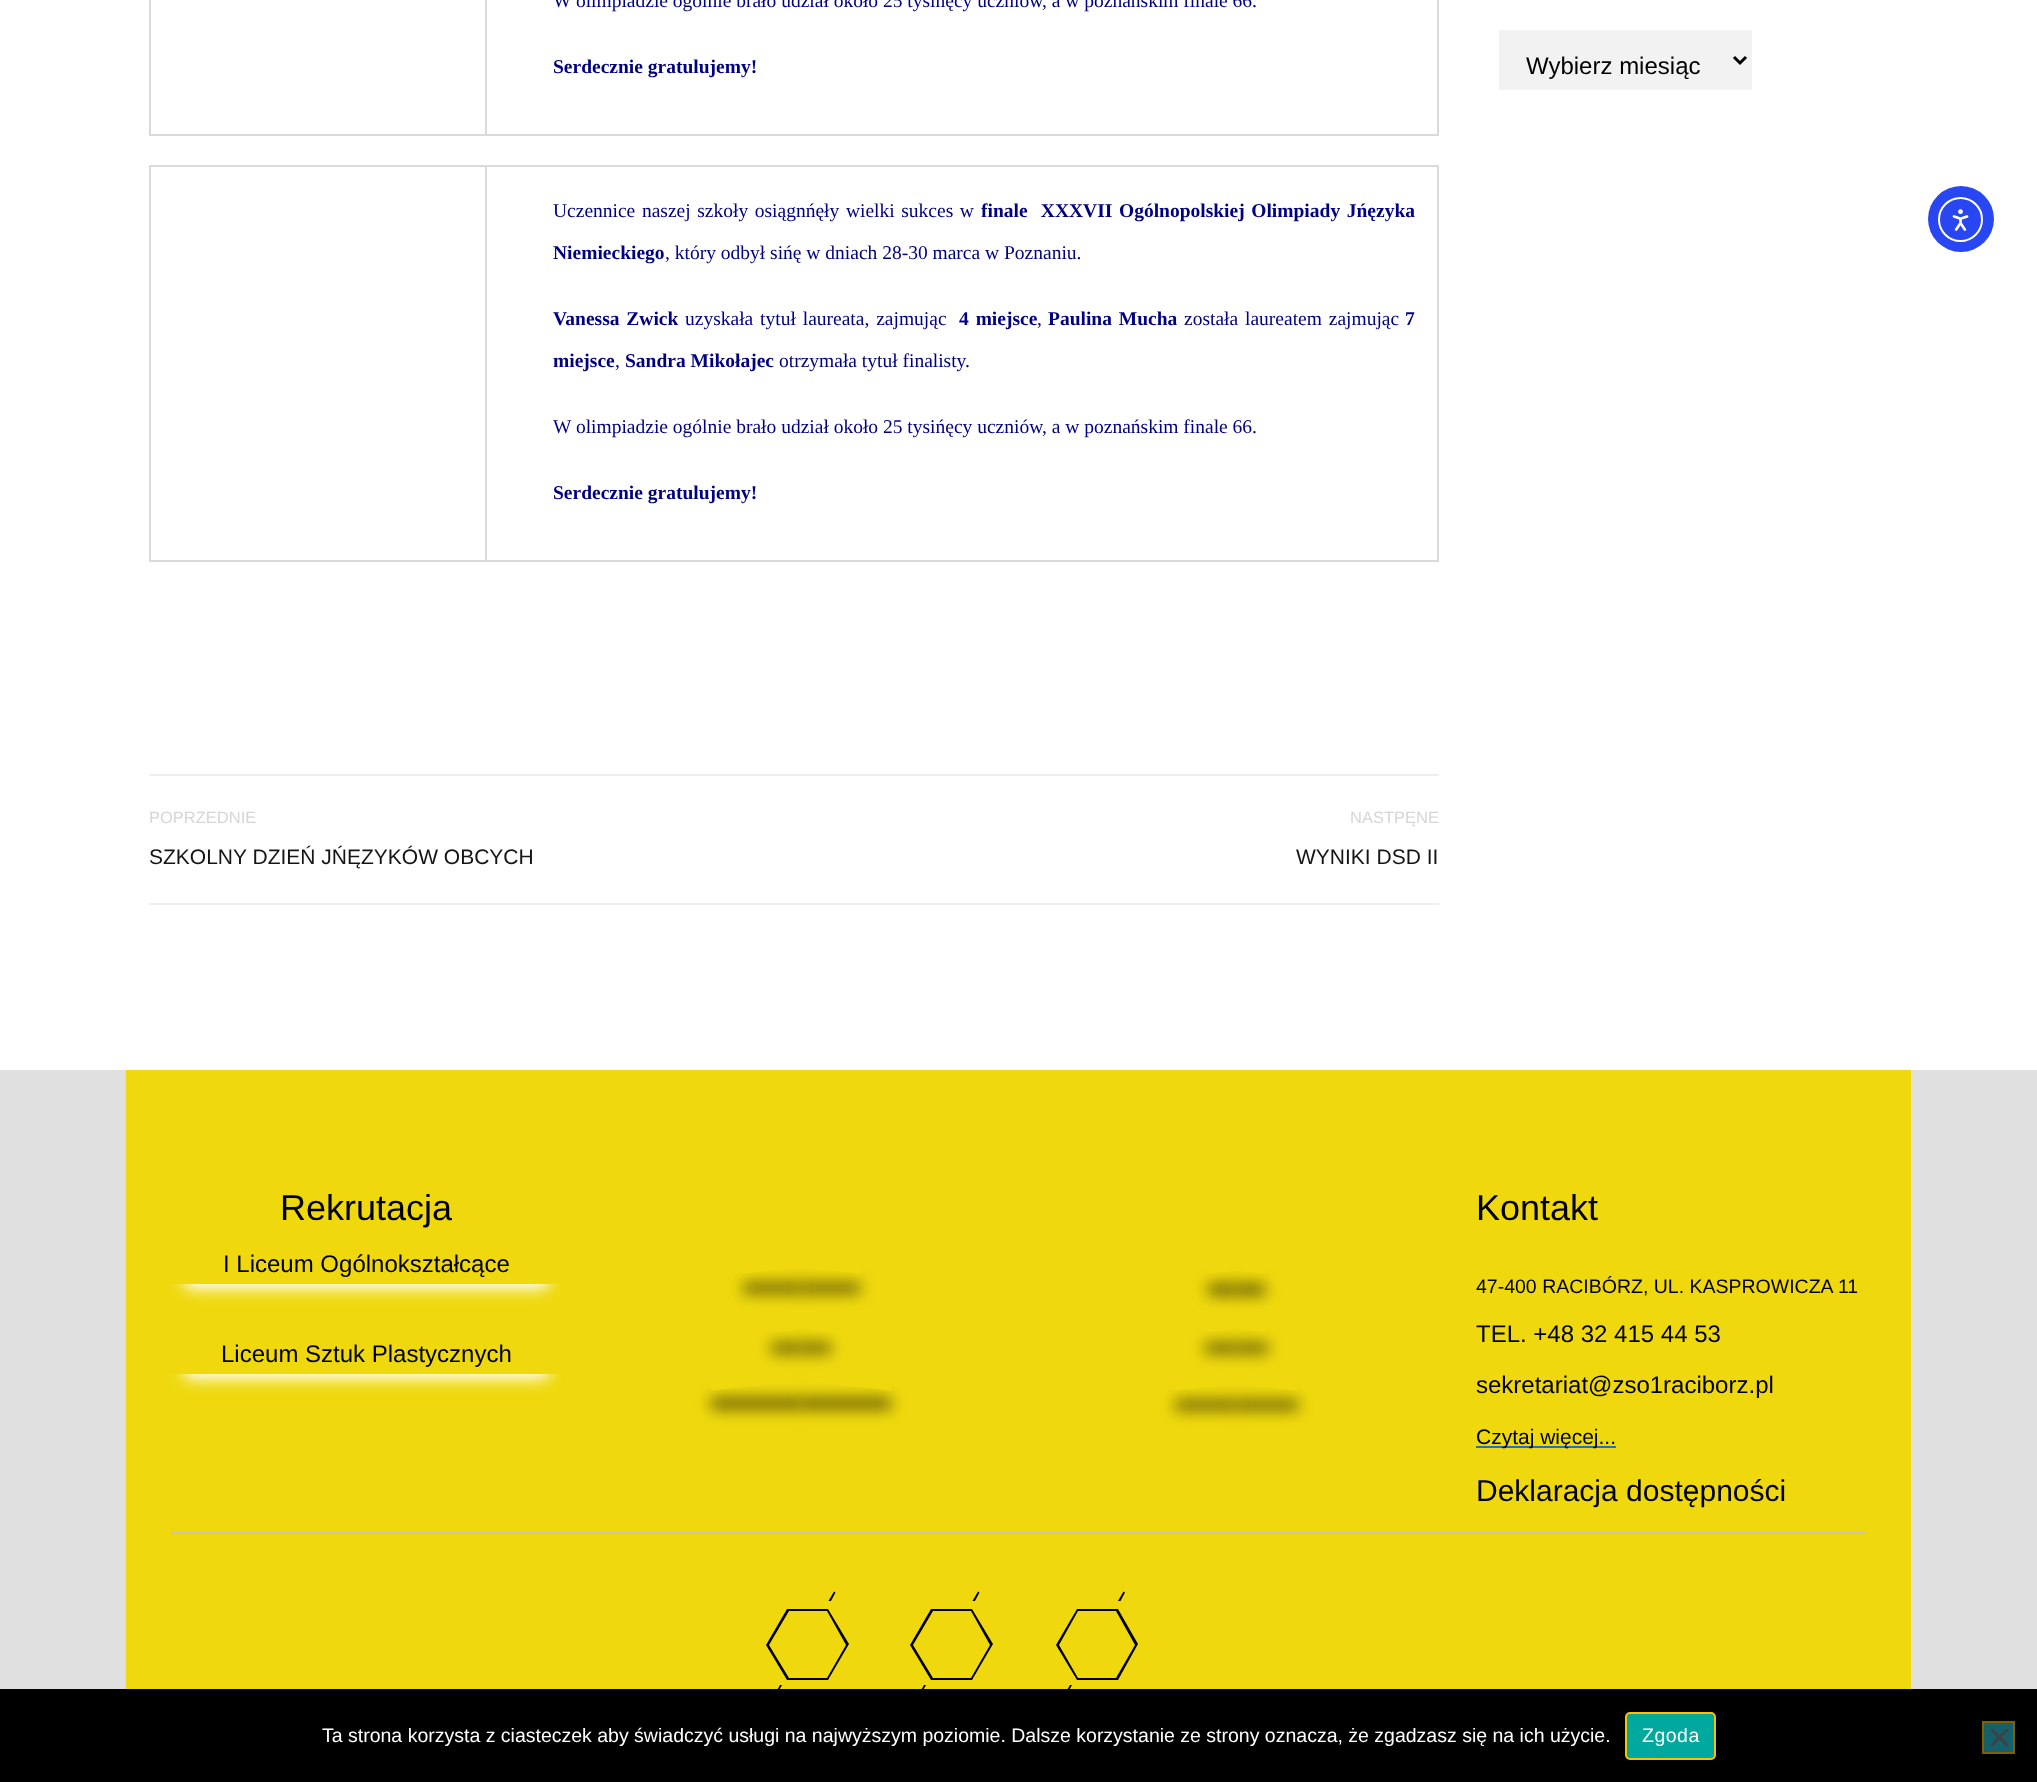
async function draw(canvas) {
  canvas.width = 2037
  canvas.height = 1782
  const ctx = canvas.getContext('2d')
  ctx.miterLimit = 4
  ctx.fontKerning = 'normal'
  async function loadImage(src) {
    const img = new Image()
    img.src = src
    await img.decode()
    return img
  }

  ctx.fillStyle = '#fff'
  ctx.fillRect(0, 0, 2037, 1782)
  ctx.fillStyle = '#dadada'
  ctx.fillRect(1437, 0, 2, 135)
  ctx.fillRect(149, 134, 1290, 2)
  ctx.fillRect(149, 0, 2, 135)
  ctx.fillRect(485, 0, 2, 135)
  ctx.font = '19.5px Liberation Serif'
  ctx.fillStyle = '#000080'
  ctx.fillText('W olimpiadzie ogólnie brało udział około 25 tysińęcy uczniów, a w poznańskim finale 66.', 553, 7)
  ctx.font = 'bold 19.5px Liberation Serif'
  ctx.fillText('Serdecznie gratulujemy!', 553, 73)
  ctx.fillStyle = '#dadada'
  ctx.fillRect(149, 165, 1290, 2)
  ctx.fillRect(1437, 165, 2, 396)
  ctx.fillRect(149, 560, 1290, 2)
  ctx.fillRect(149, 165, 2, 396)
  ctx.fillRect(485, 165, 2, 396)
  ctx.wordSpacing = '1.75px'
  ctx.font = '19.5px Liberation Serif'
  ctx.fillStyle = '#000080'
  ctx.fillText('Uczennice naszej szkoły osiągnńęły wielki sukces w', 553, 217)
  ctx.font = 'bold 19.5px Liberation Serif'
  ctx.fillText('finale  XXXVII Ogólnopolskiej Olimpiady Jńęzyka', 981, 217)
  ctx.wordSpacing = '0px'
  ctx.fillText('Niemieckiego', 553, 259)
  ctx.font = '19.5px Liberation Serif'
  ctx.fillText(', który odbył sińę w dniach 28-30 marca w Poznaniu.', 665, 259)
  ctx.wordSpacing = '2px'
  ctx.font = 'bold 19.5px Liberation Serif'
  ctx.fillText('Vanessa Zwick', 553, 325)
  ctx.font = '19.5px Liberation Serif'
  ctx.fillText('uzyskała tytuł laureata, zajmując', 685, 325)
  ctx.font = 'bold 19.5px Liberation Serif'
  ctx.fillText('4 miejsce', 959, 325)
  ctx.fillText('Paulina Mucha', 1048, 325)
  ctx.font = '19.5px Liberation Serif'
  ctx.fillText('została laureatem zajmując', 1184, 325)
  ctx.wordSpacing = '0px'
  ctx.font = 'bold 19.5px Liberation Serif'
  ctx.fillText('7', 1405, 325)
  ctx.font = '19.5px Liberation Serif'
  ctx.fillText(',', 1037, 325)
  ctx.font = 'bold 19.5px Liberation Serif'
  ctx.fillText('miejsce', 553, 367)
  ctx.font = '19.5px Liberation Serif'
  ctx.fillText(',', 615, 367)
  ctx.font = 'bold 19.5px Liberation Serif'
  ctx.fillText('Sandra Mikołajec', 625, 367)
  ctx.font = '19.5px Liberation Serif'
  ctx.fillText('otrzymała tytuł finalisty.', 779, 367)
  ctx.fillText('W olimpiadzie ogólnie brało udział około 25 tysińęcy uczniów, a w poznańskim finale 66.', 553, 433)
  ctx.font = 'bold 19.5px Liberation Serif'
  ctx.fillText('Serdecznie gratulujemy!', 553, 499)
  ctx.fillStyle = '#eee'
  ctx.fillRect(149, 774, 1290, 2)
  ctx.fillRect(149, 903, 1290, 2)
  ctx.font = '16.5px Liberation Sans'
  ctx.fillStyle = '#d6d6d6'
  ctx.fillText('POPRZEDNIE', 149, 823)
  ctx.font = '21px Liberation Sans'
  ctx.fillStyle = '#151515'
  ctx.fillText('SZKOLNY DZIEŃ JŃĘZYKÓW OBCYCH', 149, 864)
  ctx.font = '16.5px Liberation Sans'
  ctx.fillStyle = '#d6d6d6'
  ctx.fillText('NASTPĘNE', 1350, 823)
  ctx.font = '21px Liberation Sans'
  ctx.fillStyle = '#151515'
  ctx.fillText('WYNIKI DSD II', 1296, 864)
  ctx.fillStyle = '#f2f2f2'
  ctx.fillRect(1499, 30, 253, 60)
  ctx.beginPath()
  ctx.moveTo(1734, 57)
  ctx.lineTo(1740, 63)
  ctx.lineTo(1746, 57)
  ctx.strokeStyle = '#000'
  ctx.lineWidth = 3
  ctx.stroke()
  ctx.font = '24px Liberation Sans'
  ctx.fillStyle = '#000'
  ctx.fillText('Wybierz miesiąc', 1526, 74)
  ctx.fillStyle = '#2847f3'
  ctx.beginPath()
  ctx.arc(1961, 219, 33, 0, 2 * Math.PI)
  ctx.fill()
  ctx.beginPath()
  ctx.arc(1960.5, 219.5, 21.5, 0, 2 * Math.PI)
  ctx.strokeStyle = '#fff'
  ctx.lineWidth = 2
  ctx.stroke()
  ctx.drawImage(await loadImage('image0.png'), 1952, 209, 17, 22)
  ctx.fillStyle = '#e0e0e0'
  ctx.fillRect(0, 1070, 2037, 619)
  ctx.fillStyle = '#efd90e'
  ctx.fillRect(126, 1070, 1785, 619)
  ctx.font = '36px Liberation Sans'
  ctx.fillStyle = '#000'
  ctx.fillText('Rekrutacja', 280, 1220)
  ctx.save()
  ctx.beginPath()
  ctx.rect(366, 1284, 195, 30)
  ctx.clip()
  ctx.fillStyle = '#fff'
  ctx.filter = 'blur(7.5px)'
  ctx.beginPath()
  ctx.roundRect(152, 1265, 399, 24, 12)
  ctx.fill()
  ctx.filter = 'none'
  ctx.restore()
  ctx.save()
  ctx.beginPath()
  ctx.rect(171, 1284, 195, 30)
  ctx.clip()
  ctx.fillStyle = '#fff'
  ctx.filter = 'blur(7.5px)'
  ctx.beginPath()
  ctx.roundRect(182, 1265, 399, 24, 12)
  ctx.fill()
  ctx.filter = 'none'
  ctx.restore()
  ctx.font = '24px Liberation Sans'
  ctx.fillText('I Liceum Ogólnokształcące', 223, 1272)
  ctx.save()
  ctx.beginPath()
  ctx.rect(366, 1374, 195, 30)
  ctx.clip()
  ctx.fillStyle = '#fff'
  ctx.filter = 'blur(7.5px)'
  ctx.beginPath()
  ctx.roundRect(152, 1355, 399, 24, 12)
  ctx.fill()
  ctx.filter = 'none'
  ctx.restore()
  ctx.save()
  ctx.beginPath()
  ctx.rect(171, 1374, 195, 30)
  ctx.clip()
  ctx.fillStyle = '#fff'
  ctx.filter = 'blur(7.5px)'
  ctx.beginPath()
  ctx.roundRect(182, 1355, 399, 24, 12)
  ctx.fill()
  ctx.filter = 'none'
  ctx.restore()
  ctx.fillText('Liceum Sztuk Plastycznych', 221, 1362)
  ctx.save()
  ctx.beginPath()
  ctx.moveTo(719, 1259)
  ctx.lineTo(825, 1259)
  ctx.lineTo(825, 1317)
  ctx.lineTo(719, 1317)
  ctx.closePath()
  ctx.moveTo(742, 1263)
  ctx.lineTo(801, 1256.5)
  ctx.lineTo(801, 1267.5)
  ctx.lineTo(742, 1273.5)
  ctx.closePath()
  ctx.clip('evenodd')
  ctx.fillStyle = '#00000099'
  ctx.filter = 'blur(7.5px)'
  ctx.beginPath()
  ctx.rect(743, 1283, 58, 10)
  ctx.fill()
  ctx.filter = 'none'
  ctx.restore()
  ctx.save()
  ctx.beginPath()
  ctx.moveTo(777, 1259)
  ctx.lineTo(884, 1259)
  ctx.lineTo(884, 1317)
  ctx.lineTo(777, 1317)
  ctx.closePath()
  ctx.moveTo(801, 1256.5)
  ctx.lineTo(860, 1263)
  ctx.lineTo(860, 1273.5)
  ctx.lineTo(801, 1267.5)
  ctx.closePath()
  ctx.clip('evenodd')
  ctx.fillStyle = '#00000099'
  ctx.filter = 'blur(7.5px)'
  ctx.beginPath()
  ctx.rect(801, 1283, 59, 10)
  ctx.fill()
  ctx.filter = 'none'
  ctx.restore()
  ctx.save()
  ctx.beginPath()
  ctx.moveTo(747, 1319)
  ctx.lineTo(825, 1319)
  ctx.lineTo(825, 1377)
  ctx.lineTo(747, 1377)
  ctx.closePath()
  ctx.moveTo(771, 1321.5)
  ctx.lineTo(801, 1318)
  ctx.lineTo(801, 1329)
  ctx.lineTo(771, 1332)
  ctx.closePath()
  ctx.clip('evenodd')
  ctx.fillStyle = '#00000099'
  ctx.filter = 'blur(7.5px)'
  ctx.beginPath()
  ctx.rect(771, 1343, 30, 10)
  ctx.fill()
  ctx.filter = 'none'
  ctx.restore()
  ctx.save()
  ctx.beginPath()
  ctx.moveTo(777, 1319)
  ctx.lineTo(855, 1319)
  ctx.lineTo(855, 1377)
  ctx.lineTo(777, 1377)
  ctx.closePath()
  ctx.moveTo(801, 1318)
  ctx.lineTo(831, 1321.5)
  ctx.lineTo(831, 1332)
  ctx.lineTo(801, 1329)
  ctx.closePath()
  ctx.clip('evenodd')
  ctx.fillStyle = '#00000099'
  ctx.filter = 'blur(7.5px)'
  ctx.beginPath()
  ctx.rect(801, 1343, 30, 10)
  ctx.fill()
  ctx.filter = 'none'
  ctx.restore()
  ctx.save()
  ctx.beginPath()
  ctx.moveTo(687, 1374)
  ctx.lineTo(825, 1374)
  ctx.lineTo(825, 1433)
  ctx.lineTo(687, 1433)
  ctx.closePath()
  ctx.moveTo(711, 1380)
  ctx.lineTo(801, 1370.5)
  ctx.lineTo(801, 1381)
  ctx.lineTo(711, 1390.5)
  ctx.closePath()
  ctx.clip('evenodd')
  ctx.fillStyle = '#00000099'
  ctx.filter = 'blur(7.5px)'
  ctx.beginPath()
  ctx.rect(711, 1398, 90, 11)
  ctx.fill()
  ctx.filter = 'none'
  ctx.restore()
  ctx.save()
  ctx.beginPath()
  ctx.moveTo(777, 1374)
  ctx.lineTo(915, 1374)
  ctx.lineTo(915, 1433)
  ctx.lineTo(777, 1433)
  ctx.closePath()
  ctx.moveTo(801, 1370.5)
  ctx.lineTo(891, 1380)
  ctx.lineTo(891, 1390.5)
  ctx.lineTo(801, 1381)
  ctx.closePath()
  ctx.clip('evenodd')
  ctx.fillStyle = '#00000099'
  ctx.filter = 'blur(7.5px)'
  ctx.beginPath()
  ctx.rect(801, 1398, 90, 11)
  ctx.fill()
  ctx.filter = 'none'
  ctx.restore()
  ctx.save()
  ctx.beginPath()
  ctx.moveTo(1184, 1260)
  ctx.lineTo(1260, 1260)
  ctx.lineTo(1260, 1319)
  ctx.lineTo(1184, 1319)
  ctx.closePath()
  ctx.moveTo(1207, 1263)
  ctx.lineTo(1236, 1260)
  ctx.lineTo(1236, 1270.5)
  ctx.lineTo(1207, 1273.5)
  ctx.closePath()
  ctx.clip('evenodd')
  ctx.fillStyle = '#00000099'
  ctx.filter = 'blur(7.5px)'
  ctx.beginPath()
  ctx.rect(1208, 1284, 28, 11)
  ctx.fill()
  ctx.filter = 'none'
  ctx.restore()
  ctx.save()
  ctx.beginPath()
  ctx.moveTo(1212, 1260)
  ctx.lineTo(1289, 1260)
  ctx.lineTo(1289, 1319)
  ctx.lineTo(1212, 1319)
  ctx.closePath()
  ctx.moveTo(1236, 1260)
  ctx.lineTo(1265, 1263)
  ctx.lineTo(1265, 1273.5)
  ctx.lineTo(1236, 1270.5)
  ctx.closePath()
  ctx.clip('evenodd')
  ctx.fillStyle = '#00000099'
  ctx.filter = 'blur(7.5px)'
  ctx.beginPath()
  ctx.rect(1236, 1284, 29, 11)
  ctx.fill()
  ctx.filter = 'none'
  ctx.restore()
  ctx.save()
  ctx.beginPath()
  ctx.moveTo(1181, 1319)
  ctx.lineTo(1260, 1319)
  ctx.lineTo(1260, 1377)
  ctx.lineTo(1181, 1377)
  ctx.closePath()
  ctx.moveTo(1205, 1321.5)
  ctx.lineTo(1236, 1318)
  ctx.lineTo(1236, 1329)
  ctx.lineTo(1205, 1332)
  ctx.closePath()
  ctx.clip('evenodd')
  ctx.fillStyle = '#00000099'
  ctx.filter = 'blur(7.5px)'
  ctx.beginPath()
  ctx.rect(1205, 1343, 31, 10)
  ctx.fill()
  ctx.filter = 'none'
  ctx.restore()
  ctx.save()
  ctx.beginPath()
  ctx.moveTo(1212, 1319)
  ctx.lineTo(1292, 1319)
  ctx.lineTo(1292, 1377)
  ctx.lineTo(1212, 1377)
  ctx.closePath()
  ctx.moveTo(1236, 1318)
  ctx.lineTo(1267, 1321.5)
  ctx.lineTo(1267, 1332)
  ctx.lineTo(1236, 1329)
  ctx.closePath()
  ctx.clip('evenodd')
  ctx.fillStyle = '#00000099'
  ctx.filter = 'blur(7.5px)'
  ctx.beginPath()
  ctx.rect(1236, 1343, 32, 10)
  ctx.fill()
  ctx.filter = 'none'
  ctx.restore()
  ctx.save()
  ctx.beginPath()
  ctx.moveTo(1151, 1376)
  ctx.lineTo(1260, 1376)
  ctx.lineTo(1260, 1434)
  ctx.lineTo(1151, 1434)
  ctx.closePath()
  ctx.moveTo(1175, 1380)
  ctx.lineTo(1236, 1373.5)
  ctx.lineTo(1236, 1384)
  ctx.lineTo(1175, 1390.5)
  ctx.closePath()
  ctx.clip('evenodd')
  ctx.fillStyle = '#00000099'
  ctx.filter = 'blur(7.5px)'
  ctx.beginPath()
  ctx.rect(1175, 1400, 61, 10)
  ctx.fill()
  ctx.filter = 'none'
  ctx.restore()
  ctx.save()
  ctx.beginPath()
  ctx.moveTo(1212, 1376)
  ctx.lineTo(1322, 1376)
  ctx.lineTo(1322, 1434)
  ctx.lineTo(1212, 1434)
  ctx.closePath()
  ctx.moveTo(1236, 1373.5)
  ctx.lineTo(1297, 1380)
  ctx.lineTo(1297, 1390.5)
  ctx.lineTo(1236, 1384)
  ctx.closePath()
  ctx.clip('evenodd')
  ctx.fillStyle = '#00000099'
  ctx.filter = 'blur(7.5px)'
  ctx.beginPath()
  ctx.rect(1236, 1400, 62, 10)
  ctx.fill()
  ctx.filter = 'none'
  ctx.restore()
  ctx.font = '36px Liberation Sans'
  ctx.fillText('Kontakt', 1476, 1220)
  ctx.font = '19.5px Liberation Sans'
  ctx.fillText('47-400 RACIBÓRZ, UL. KASPROWICZA 11', 1476, 1293)
  ctx.font = '24px Liberation Sans'
  ctx.fillText('TEL. +48 32 415 44 53', 1476, 1342)
  ctx.fillText('sekretariat@zso1raciborz.pl', 1476, 1393)
  ctx.fillStyle = '#1e73be'
  ctx.fillRect(1476, 1446, 140, 2)
  ctx.font = '21px Liberation Sans'
  ctx.fillStyle = '#000'
  ctx.fillText('Czytaj więcej...', 1476, 1444)
  ctx.font = '30px Liberation Sans'
  ctx.fillText('Deklaracja dostępności', 1476, 1501)
  ctx.fillStyle = '#cec2ab'
  ctx.fillRect(171, 1532, 1695, 2)
  ctx.fillStyle = '#000'
  ctx.beginPath()
  ctx.moveTo(831, 1601)
  ctx.lineTo(835.5, 1592.5)
  ctx.lineTo(834, 1591.5)
  ctx.lineTo(828.5, 1601)
  ctx.closePath()
  ctx.fill()
  ctx.beginPath()
  ctx.moveTo(828, 1680)
  ctx.lineTo(787, 1680)
  ctx.lineTo(766, 1645)
  ctx.lineTo(787, 1609)
  ctx.lineTo(828, 1609)
  ctx.lineTo(849, 1644)
  ctx.closePath()
  ctx.moveTo(789, 1678)
  ctx.lineTo(827, 1678)
  ctx.lineTo(846, 1645)
  ctx.lineTo(827, 1611)
  ctx.lineTo(789, 1611)
  ctx.lineTo(769, 1645)
  ctx.closePath()
  ctx.fill()
  ctx.beginPath()
  ctx.moveTo(780, 1685)
  ctx.lineTo(752, 1735)
  ctx.lineTo(753, 1736)
  ctx.lineTo(782, 1685)
  ctx.closePath()
  ctx.fill()
  ctx.beginPath()
  ctx.moveTo(975, 1601)
  ctx.lineTo(979.5, 1592.5)
  ctx.lineTo(978, 1591.5)
  ctx.lineTo(972.5, 1601)
  ctx.closePath()
  ctx.fill()
  ctx.beginPath()
  ctx.moveTo(972, 1680)
  ctx.lineTo(931, 1680)
  ctx.lineTo(910, 1645)
  ctx.lineTo(931, 1609)
  ctx.lineTo(972, 1609)
  ctx.lineTo(993, 1644)
  ctx.closePath()
  ctx.moveTo(933, 1678)
  ctx.lineTo(971, 1678)
  ctx.lineTo(990, 1645)
  ctx.lineTo(971, 1611)
  ctx.lineTo(933, 1611)
  ctx.lineTo(913, 1645)
  ctx.closePath()
  ctx.fill()
  ctx.beginPath()
  ctx.moveTo(924, 1685)
  ctx.lineTo(896, 1735)
  ctx.lineTo(897, 1736)
  ctx.lineTo(926, 1685)
  ctx.closePath()
  ctx.fill()
  ctx.beginPath()
  ctx.moveTo(1120.5, 1601)
  ctx.lineTo(1125, 1592.5)
  ctx.lineTo(1123.5, 1591.5)
  ctx.lineTo(1118, 1601)
  ctx.closePath()
  ctx.fill()
  ctx.beginPath()
  ctx.moveTo(1118, 1680)
  ctx.lineTo(1077, 1680)
  ctx.lineTo(1056, 1645)
  ctx.lineTo(1077, 1609)
  ctx.lineTo(1118, 1609)
  ctx.lineTo(1138, 1644)
  ctx.closePath()
  ctx.moveTo(1078, 1678)
  ctx.lineTo(1116, 1678)
  ctx.lineTo(1135, 1645)
  ctx.lineTo(1116, 1611)
  ctx.lineTo(1078, 1611)
  ctx.lineTo(1059, 1645)
  ctx.closePath()
  ctx.fill()
  ctx.beginPath()
  ctx.moveTo(1070, 1685)
  ctx.lineTo(1041, 1735)
  ctx.lineTo(1043, 1736)
  ctx.lineTo(1072, 1685)
  ctx.closePath()
  ctx.fill()
  ctx.fillRect(0, 1689, 2037, 93)
  ctx.font = '19.5px Liberation Sans'
  ctx.fillStyle = '#fff'
  ctx.fillText('Ta strona korzysta z ciasteczek aby świadczyć usługi na najwyższym poziomie. Dalsze korzystanie ze strony oznacza, że zgadzasz się na ich użycie.', 322, 1742)
  ctx.fillStyle = '#00a99d'
  ctx.beginPath()
  ctx.roundRect(1626, 1713, 89, 46, 4)
  ctx.fill()
  ctx.strokeStyle = '#ffc000'
  ctx.stroke()
  ctx.letterSpacing = '0.5px'
  ctx.fillStyle = '#fff'
  ctx.fillText('Zgoda', 1642, 1742)
  ctx.fillStyle = '#15606a'
  ctx.beginPath()
  ctx.rect(1983, 1722, 31, 31)
  ctx.fill()
  ctx.strokeStyle = '#806000'
  ctx.stroke()
  ctx.fillStyle = '#404040'
  ctx.beginPath()
  ctx.moveTo(2006.5, 1728.5)
  ctx.lineTo(2008.5, 1730.5)
  ctx.lineTo(1992.5, 1746.5)
  ctx.lineTo(1990.5, 1744.5)
  ctx.closePath()
  ctx.fill()
  ctx.beginPath()
  ctx.moveTo(1990.5, 1730.5)
  ctx.lineTo(1992.5, 1728.5)
  ctx.lineTo(2008.5, 1744.5)
  ctx.lineTo(2006.5, 1746.5)
  ctx.closePath()
  ctx.fill()
}

draw(document.querySelector('canvas'))
